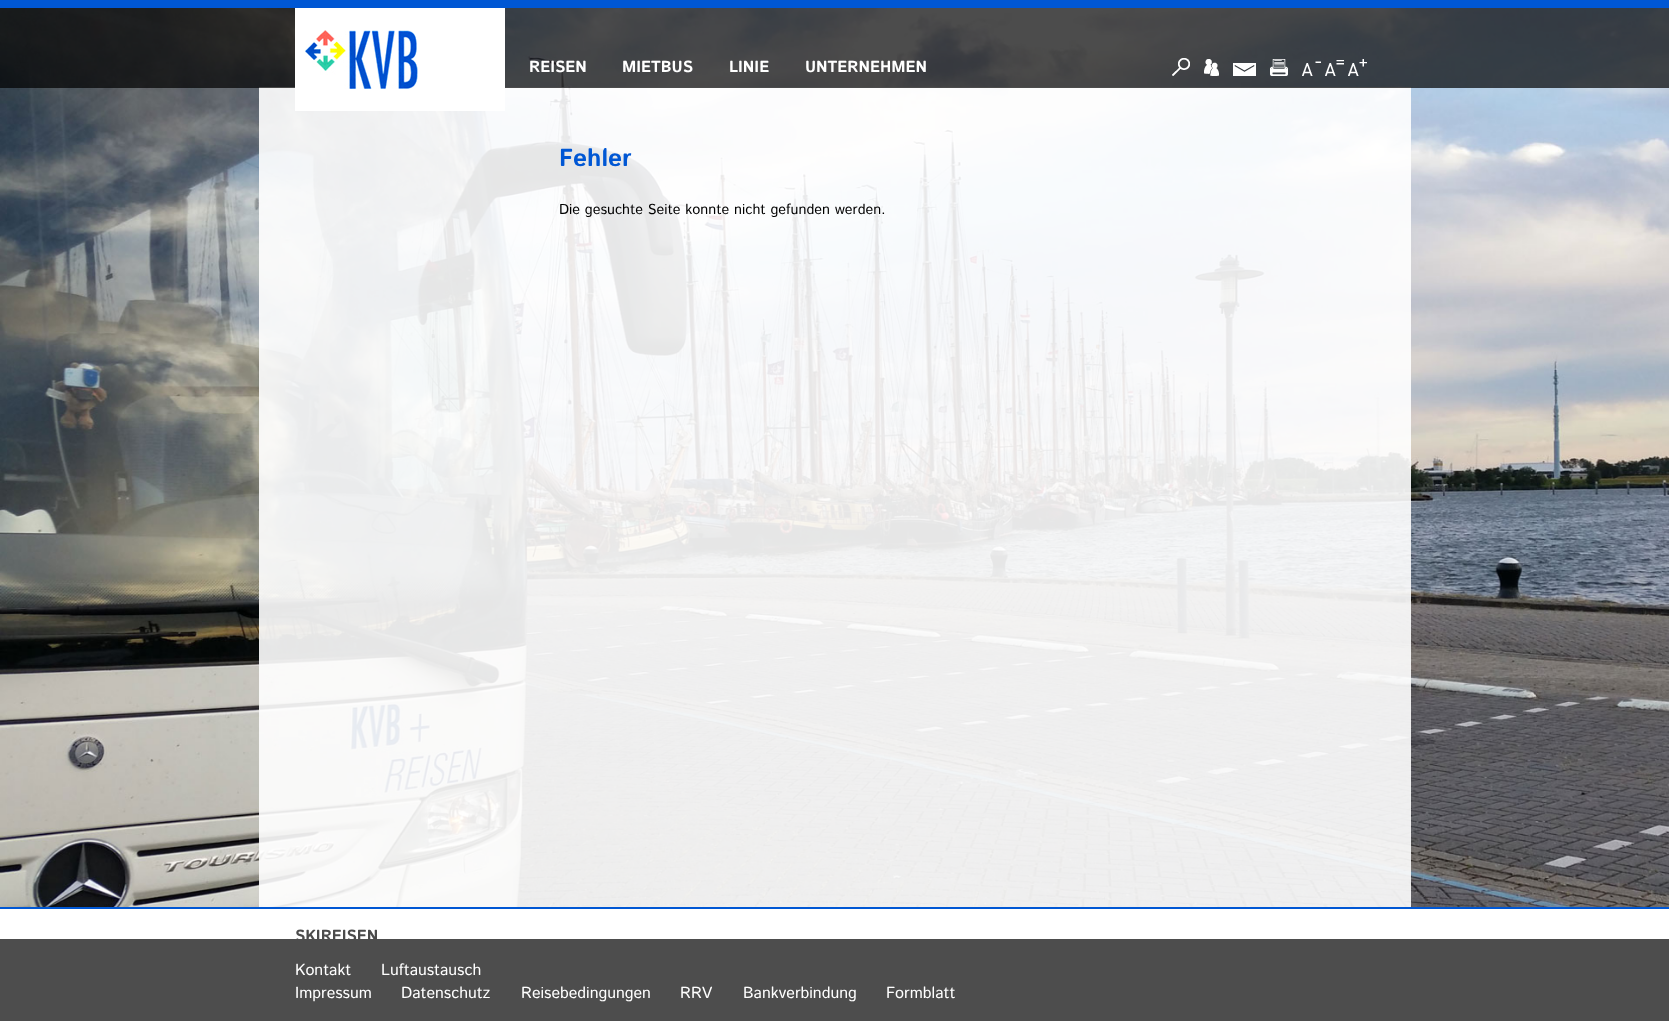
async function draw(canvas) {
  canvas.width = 1669
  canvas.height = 1021
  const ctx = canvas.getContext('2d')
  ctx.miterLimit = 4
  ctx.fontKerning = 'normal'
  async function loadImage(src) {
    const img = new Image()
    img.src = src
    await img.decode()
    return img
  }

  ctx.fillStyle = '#fff'
  ctx.fillRect(0, 0, 1669, 1021)
  ctx.drawImage(await loadImage('image0.png'), 0, 8, 1669, 899)
  ctx.fillStyle = '#ffffffe6'
  ctx.fillRect(259, 87, 1152, 820)
  ctx.fillStyle = '#000000b3'
  ctx.fillRect(0, 8, 1669, 80)
  ctx.fillStyle = '#0057d4'
  ctx.fillRect(0, 0, 1669, 8)
  ctx.fillStyle = '#fff'
  ctx.fillRect(295, 8, 210, 103)
  ctx.drawImage(await loadImage('image1.png'), 305, 30, 113, 59)
  ctx.font = 'bold 16px Istok Web'
  ctx.fillText('REISEN', 529, 72)
  ctx.fillText('MIETBUS', 622, 72)
  ctx.fillText('LINIE', 729, 72)
  ctx.fillText('UNTERNEHMEN', 805, 72)
  ctx.drawImage(await loadImage('image2.png'), 1172, 58, 18, 18)
  ctx.drawImage(await loadImage('image3.png'), 1204, 59, 15, 17)
  ctx.drawImage(await loadImage('image4.png'), 1233, 63, 23, 13)
  ctx.drawImage(await loadImage('image5.png'), 1270, 59, 18, 17)
  ctx.drawImage(await loadImage('image6.png'), 1302, 61, 19, 15)
  ctx.drawImage(await loadImage('image7.png'), 1325, 60, 19, 16)
  ctx.drawImage(await loadImage('image8.png'), 1348, 59, 19, 17)
  ctx.font = 'bold 24.5px Istok Web'
  ctx.fillStyle = '#0057d4'
  ctx.fillText('Fehler', 559, 166)
  ctx.font = '14.4px Istok Web'
  ctx.fillStyle = '#000'
  ctx.fillText('Die gesuchte Seite konnte nicht gefunden werden.', 559, 214)
  ctx.fillStyle = '#0057d4'
  ctx.fillRect(0, 907, 1669, 2)
  ctx.font = 'bold 16px Istok Web'
  ctx.fillStyle = '#4b4b4b'
  ctx.fillText('SKIREISEN', 295, 941)
  ctx.fillStyle = '#4d4d4d'
  ctx.fillRect(0, 939, 1669, 82)
  ctx.font = '16px Istok Web'
  ctx.fillStyle = '#fff'
  ctx.fillText('Kontakt', 295, 975)
  ctx.fillText('Luftaustausch', 381, 975)
  ctx.fillText('Impressum', 295, 998)
  ctx.fillText('Datenschutz', 401, 998)
  ctx.fillText('Reisebedingungen', 521, 998)
  ctx.fillText('RRV', 680, 998)
  ctx.fillText('Bankverbindung', 743, 998)
  ctx.fillText('Formblatt', 886, 998)
}

draw(document.querySelector('canvas'))
